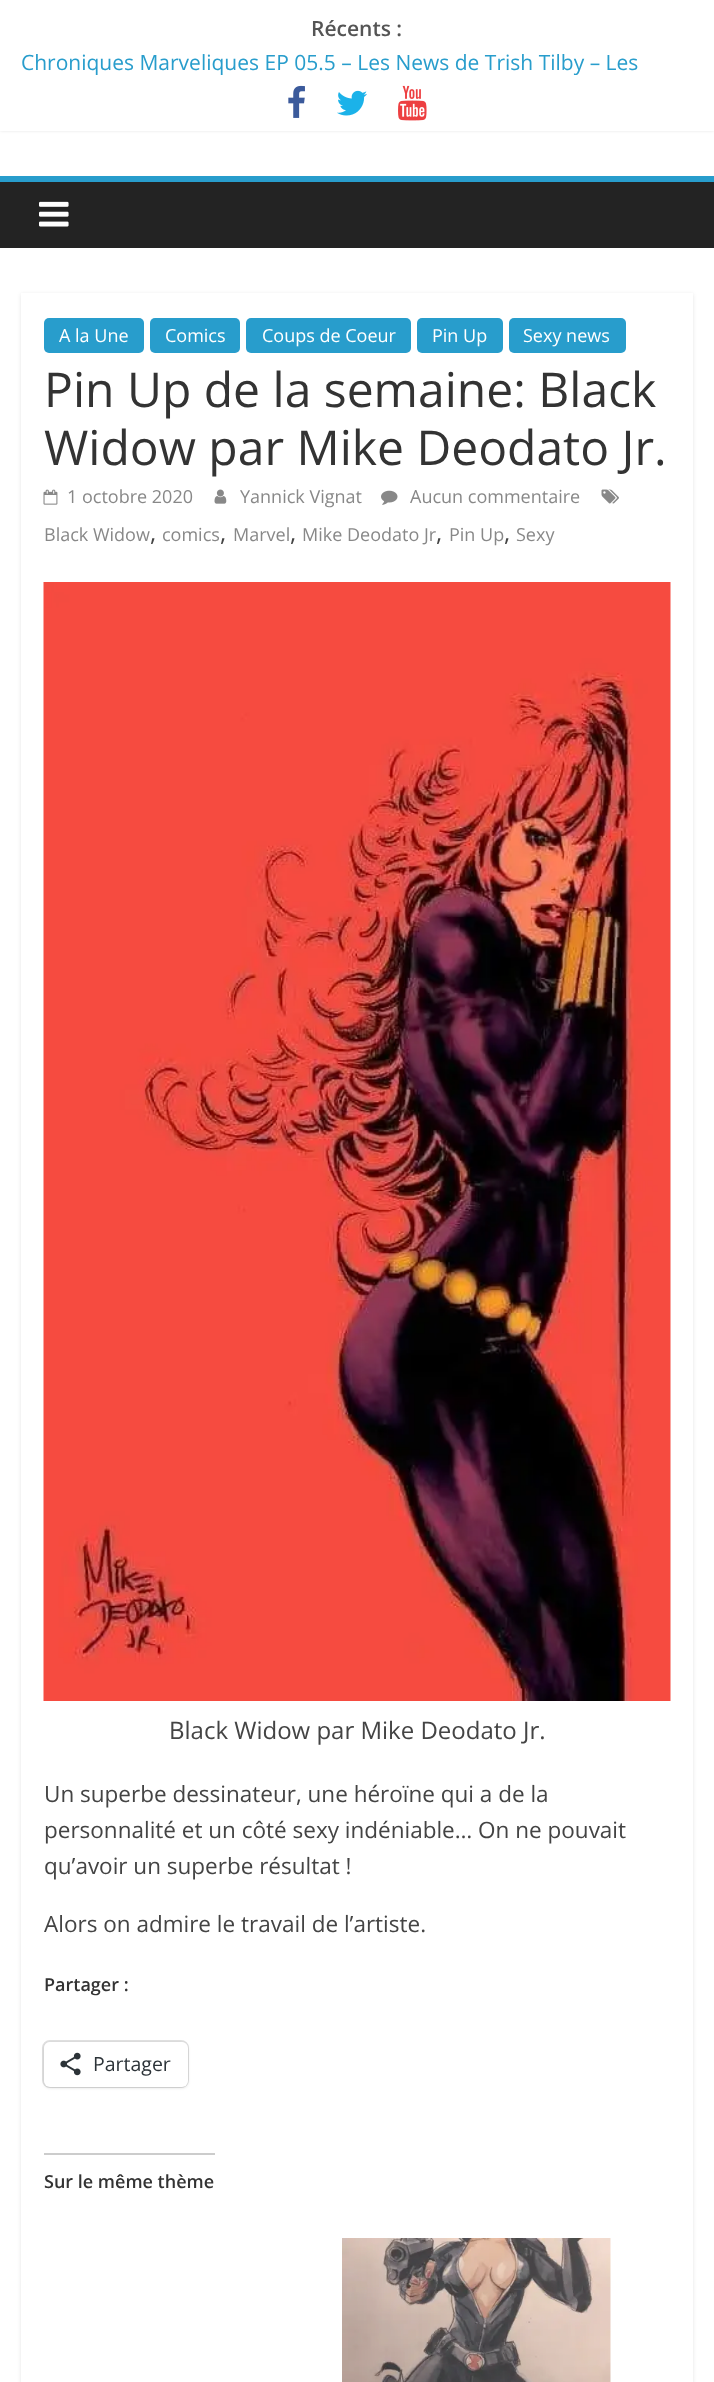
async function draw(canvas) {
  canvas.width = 714
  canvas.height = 2382
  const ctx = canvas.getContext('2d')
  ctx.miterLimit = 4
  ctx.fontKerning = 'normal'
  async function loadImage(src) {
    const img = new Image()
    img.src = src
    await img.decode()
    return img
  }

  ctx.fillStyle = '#fff'
  ctx.fillRect(0, 0, 714, 2382)
  ctx.fillStyle = '#0000001a'
  ctx.filter = 'blur(1.5px)'
  ctx.beginPath()
  ctx.rect(0, 0, 714, 131)
  ctx.fill()
  ctx.filter = 'none'
  ctx.fillStyle = '#fff'
  ctx.fillRect(0, 0, 714, 131)
  ctx.font = '600 21px Open Sans'
  ctx.fillStyle = '#555'
  ctx.fillText('Récents :', 311, 36)
  ctx.font = '21px Open Sans'
  ctx.fillStyle = '#289dcc'
  ctx.fillText('Chroniques Marveliques EP 05.5 – Les News de Trish Tilby – Les', 21, 70)
  ctx.drawImage(await loadImage('image0.png'), 288, 85, 17, 33)
  ctx.drawImage(await loadImage('image1.png'), 337, 90, 30, 26)
  ctx.drawImage(await loadImage('image2.png'), 398, 85, 29, 36)
  ctx.fillStyle = '#232323'
  ctx.fillRect(0, 182, 714, 66)
  ctx.fillStyle = '#289dcc'
  ctx.fillRect(0, 176, 714, 6)
  ctx.drawImage(await loadImage('image3.png'), 39, 201, 30, 26)
  ctx.save()
  ctx.beginPath()
  ctx.moveTo(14, 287)
  ctx.lineTo(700, 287)
  ctx.lineTo(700, 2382)
  ctx.lineTo(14, 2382)
  ctx.closePath()
  ctx.moveTo(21, 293)
  ctx.lineTo(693, 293)
  ctx.lineTo(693, 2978)
  ctx.lineTo(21, 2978)
  ctx.closePath()
  ctx.clip('evenodd')
  ctx.fillStyle = '#0000001a'
  ctx.filter = 'blur(2px)'
  ctx.beginPath()
  ctx.rect(21, 294, 672, 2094)
  ctx.fill()
  ctx.filter = 'none'
  ctx.restore()
  ctx.beginPath()
  ctx.roundRect(44, 318, 100, 35, 5)
  ctx.fill()
  ctx.font = '18px Open Sans'
  ctx.fillStyle = '#fff'
  ctx.fillText('A la Une', 59, 342)
  ctx.fillStyle = '#289dcc'
  ctx.beginPath()
  ctx.roundRect(150, 318, 90, 35, 5)
  ctx.fill()
  ctx.fillStyle = '#fff'
  ctx.fillText('Comics', 165, 342)
  ctx.fillStyle = '#289dcc'
  ctx.beginPath()
  ctx.roundRect(246, 318, 165, 35, 5)
  ctx.fill()
  ctx.fillStyle = '#fff'
  ctx.fillText('Coups de Coeur', 262, 342)
  ctx.fillStyle = '#289dcc'
  ctx.beginPath()
  ctx.roundRect(417, 318, 86, 35, 5)
  ctx.fill()
  ctx.fillStyle = '#fff'
  ctx.fillText('Pin Up', 432, 342)
  ctx.fillStyle = '#289dcc'
  ctx.beginPath()
  ctx.roundRect(509, 318, 117, 35, 5)
  ctx.fill()
  ctx.fillStyle = '#fff'
  ctx.fillText('Sexy news', 523, 342)
  ctx.font = '48px Open Sans'
  ctx.fillStyle = '#333'
  ctx.fillText('Pin Up de la semaine: Black', 44, 407)
  ctx.fillText('Widow par Mike Deodato Jr.', 44, 465)
  ctx.drawImage(await loadImage('image4.png'), 43, 489, 15, 16)
  ctx.font = '18px Open Sans'
  ctx.fillStyle = '#888'
  ctx.fillText('1 octobre 2020', 67, 503)
  ctx.drawImage(await loadImage('image5.png'), 214, 489, 13, 15)
  ctx.fillText('Yannick Vignat', 240, 503)
  ctx.drawImage(await loadImage('image6.png'), 381, 490, 17, 15)
  ctx.fillText('Aucun commentaire', 410, 503)
  ctx.drawImage(await loadImage('image7.png'), 601, 489, 18, 15)
  ctx.fillText('Black Widow', 44, 541)
  ctx.font = '24px Open Sans'
  ctx.fillStyle = '#444'
  ctx.fillText(',', 150, 541)
  ctx.font = '18px Open Sans'
  ctx.fillStyle = '#888'
  ctx.fillText('comics', 162, 541)
  ctx.font = '24px Open Sans'
  ctx.fillStyle = '#444'
  ctx.fillText(',', 220, 541)
  ctx.font = '18px Open Sans'
  ctx.fillStyle = '#888'
  ctx.fillText('Marvel', 233, 541)
  ctx.font = '24px Open Sans'
  ctx.fillStyle = '#444'
  ctx.fillText(',', 290, 541)
  ctx.font = '18px Open Sans'
  ctx.fillStyle = '#888'
  ctx.fillText('Mike Deodato Jr', 302, 541)
  ctx.font = '24px Open Sans'
  ctx.fillStyle = '#444'
  ctx.fillText(',', 436, 541)
  ctx.font = '18px Open Sans'
  ctx.fillStyle = '#888'
  ctx.fillText('Pin Up', 449, 541)
  ctx.font = '24px Open Sans'
  ctx.fillStyle = '#444'
  ctx.fillText(',', 504, 541)
  ctx.font = '18px Open Sans'
  ctx.fillStyle = '#888'
  ctx.fillText('Sexy', 516, 541)
  ctx.drawImage(await loadImage('image8.png'), 43, 582, 628, 1119)
  ctx.font = '24px Open Sans'
  ctx.fillStyle = '#444'
  ctx.fillText('Black Widow par Mike Deodato Jr.', 169, 1739)
  ctx.font = '22.5px Open Sans'
  ctx.fillText('Un superbe dessinateur, une héroïne qui a de la', 44, 1802)
  ctx.fillText('personnalité et un côté sexy indéniable… On ne pouvait', 44, 1838)
  ctx.fillText('qu’avoir un superbe résultat !', 44, 1874)
  ctx.fillText('Alors on admire le travail de l’artiste.', 44, 1932)
  ctx.font = '600 18px Open Sans'
  ctx.fillStyle = '#333'
  ctx.fillText('Partager :', 44, 1991)
  ctx.beginPath()
  ctx.roundRect(43, 2041, 145, 46, 7)
  ctx.strokeStyle = '#e0e0e0'
  ctx.lineWidth = 2
  ctx.stroke()
  ctx.fillStyle = '#0000001f'
  ctx.filter = 'blur(1.5px)'
  ctx.beginPath()
  ctx.roundRect(44, 2043, 144, 45, 6)
  ctx.fill()
  ctx.filter = 'none'
  ctx.fillStyle = '#fff'
  ctx.beginPath()
  ctx.roundRect(44, 2042, 144, 45, 6)
  ctx.fill()
  ctx.drawImage(await loadImage('image9.png'), 60, 2052, 21, 24)
  ctx.font = '19.5px Open Sans'
  ctx.fillStyle = '#2c3338'
  ctx.fillText('Partager', 93, 2071)
  ctx.fillStyle = '#ccc'
  ctx.fillRect(44, 2153, 171, 2)
  ctx.font = '600 18px Open Sans'
  ctx.fillStyle = '#333'
  ctx.fillText('Sur le même thème', 44, 2188)
  ctx.drawImage(await loadImage('image10.png'), 342, 2238, 269, 144)
}

draw(document.querySelector('canvas'))
